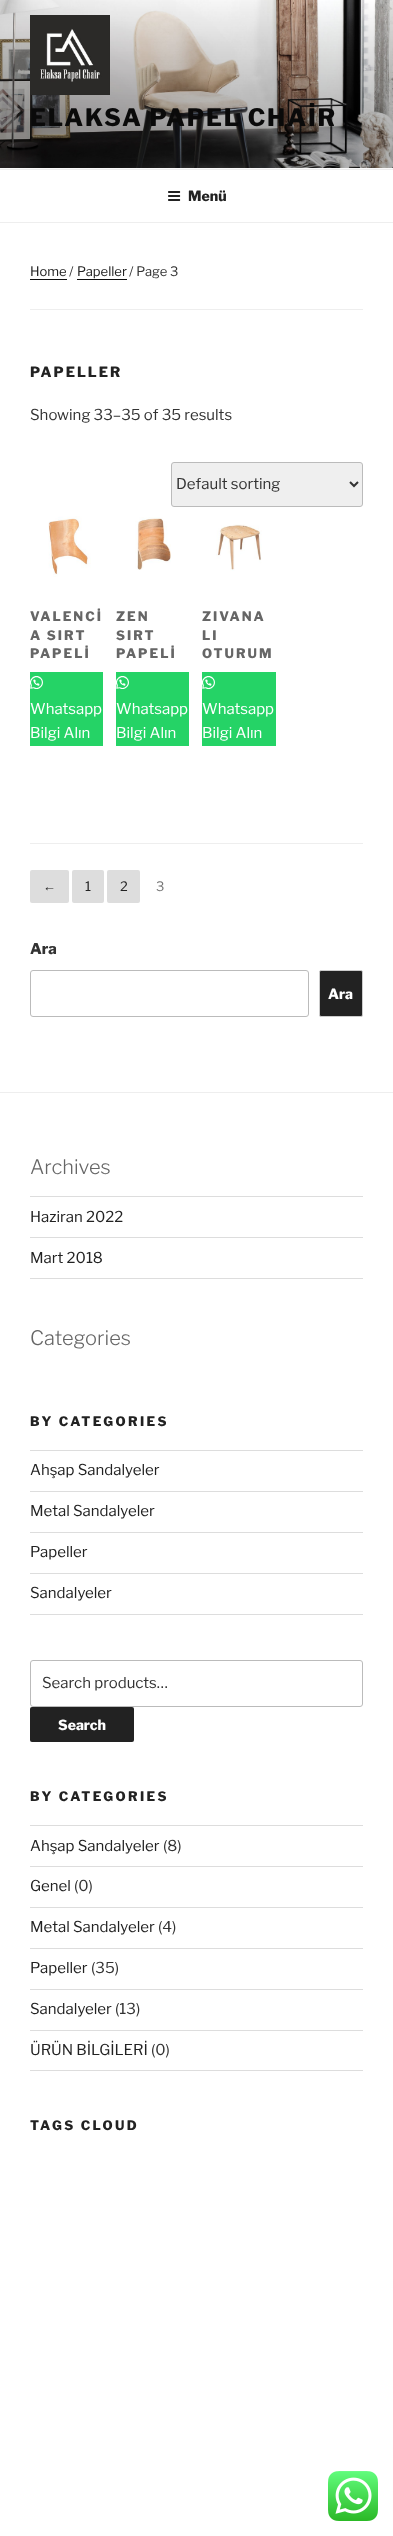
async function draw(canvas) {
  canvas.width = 393
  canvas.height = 2536
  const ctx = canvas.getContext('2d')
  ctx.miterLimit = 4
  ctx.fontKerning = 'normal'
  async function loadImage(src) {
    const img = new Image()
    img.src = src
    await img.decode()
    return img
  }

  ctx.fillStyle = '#fff'
  ctx.fillRect(0, 0, 393, 2536)
  ctx.fillStyle = '#fafafa'
  ctx.fillRect(0, 168, 393, 1)
  ctx.drawImage(await loadImage('image0.png'), 0, 0, 393, 168)
  ctx.drawImage(await loadImage('image1.png'), 30, 15, 80, 80)
  ctx.letterSpacing = '1.9px'
  ctx.font = '800 24px Libre Franklin'
  ctx.fillStyle = '#0a0a0a'
  ctx.fillText('ELAKSA PAPEL CHAİR', 30, 126)
  ctx.fillStyle = '#eee'
  ctx.fillRect(0, 169, 393, 1)
  ctx.fillRect(0, 222, 393, 1)
  ctx.drawImage(await loadImage('image2.png'), 168, 191, 13, 10)
  ctx.letterSpacing = '0px'
  ctx.font = '800 14px Libre Franklin'
  ctx.fillStyle = '#222'
  ctx.fillText('Menü', 188, 201)
  ctx.fillStyle = '#eee'
  ctx.fillRect(30, 309, 333, 1)
  ctx.font = '13px Libre Franklin'
  ctx.fillStyle = '#222'
  ctx.fillText('Home', 30, 276)
  ctx.fillStyle = '#0f0f0f'
  ctx.fillRect(30, 279, 37, 1)
  ctx.fillStyle = '#333'
  ctx.fillText('/', 69, 276)
  ctx.fillStyle = '#222'
  ctx.fillText('Papeller', 77, 276)
  ctx.fillStyle = '#0f0f0f'
  ctx.fillRect(77, 279, 50, 1)
  ctx.fillStyle = '#333'
  ctx.fillText('/ Page 3', 129, 276)
  ctx.letterSpacing = '2px'
  ctx.font = '800 14px Libre Franklin'
  ctx.fillStyle = '#222'
  ctx.fillText('PAPELLER', 30, 377)
  ctx.letterSpacing = '0px'
  ctx.font = '15px Libre Franklin'
  ctx.fillStyle = '#333'
  ctx.fillText('Showing 33–35 of 35 results', 30, 420)
  ctx.fillStyle = '#efefef'
  ctx.beginPath()
  ctx.roundRect(171.5, 462.5, 191, 44, 2.5)
  ctx.fill()
  ctx.strokeStyle = '#bbb'
  ctx.stroke()
  ctx.beginPath()
  ctx.moveTo(350, 482)
  ctx.lineTo(354, 486)
  ctx.lineTo(358, 482)
  ctx.strokeStyle = '#333'
  ctx.lineWidth = 2
  ctx.stroke()
  ctx.fillStyle = '#333'
  ctx.fillText('Default sorting', 176, 489)
  ctx.drawImage(await loadImage('image3.png'), 48, 516, 43, 61)
  ctx.letterSpacing = '2px'
  ctx.font = '800 13px Libre Franklin'
  ctx.fillStyle = '#666'
  ctx.fillText('VALENCİ', 30, 621)
  ctx.fillText('A SIRT', 30, 640)
  ctx.fillText('PAPELİ', 30, 658)
  ctx.fillStyle = '#25d366'
  ctx.fillRect(30, 672, 73, 74)
  ctx.drawImage(await loadImage('image4.png'), 30, 676, 13, 13)
  ctx.letterSpacing = '0px'
  ctx.font = '15px Libre Franklin'
  ctx.fillStyle = '#fff'
  ctx.fillText('Whatsapp', 30, 714)
  ctx.fillText('Bilgi Alın', 30, 738)
  ctx.drawImage(await loadImage('image5.png'), 135, 517, 36, 53)
  ctx.letterSpacing = '2px'
  ctx.font = '800 13px Libre Franklin'
  ctx.fillStyle = '#666'
  ctx.fillText('ZEN', 116, 621)
  ctx.fillText('SIRT', 116, 640)
  ctx.fillText('PAPELİ', 116, 658)
  ctx.fillStyle = '#25d366'
  ctx.fillRect(116, 672, 73, 74)
  ctx.drawImage(await loadImage('image4.png'), 116, 676, 13, 13)
  ctx.letterSpacing = '0px'
  ctx.font = '15px Libre Franklin'
  ctx.fillStyle = '#fff'
  ctx.fillText('Whatsapp', 116, 714)
  ctx.fillText('Bilgi Alın', 116, 738)
  ctx.drawImage(await loadImage('image6.png'), 216, 524, 46, 47)
  ctx.letterSpacing = '2px'
  ctx.font = '800 13px Libre Franklin'
  ctx.fillStyle = '#666'
  ctx.fillText('ZIVANA', 202, 621)
  ctx.fillText('LI', 202, 640)
  ctx.fillText('OTURUM', 202, 658)
  ctx.fillStyle = '#25d366'
  ctx.fillRect(202, 672, 74, 74)
  ctx.drawImage(await loadImage('image4.png'), 202, 676, 13, 13)
  ctx.letterSpacing = '0px'
  ctx.font = '15px Libre Franklin'
  ctx.fillStyle = '#fff'
  ctx.fillText('Whatsapp', 202, 714)
  ctx.fillText('Bilgi Alın', 202, 738)
  ctx.fillStyle = '#eee'
  ctx.fillRect(30, 843, 333, 1)
  ctx.fillStyle = '#ddd'
  ctx.beginPath()
  ctx.roundRect(30, 870, 39, 33, 2)
  ctx.fill()
  ctx.font = '13px Liberation Sans'
  ctx.fillStyle = '#222'
  ctx.fillText('←', 43, 891)
  ctx.fillStyle = '#ddd'
  ctx.beginPath()
  ctx.roundRect(72, 870, 32, 33, 2)
  ctx.fill()
  ctx.font = '13px Libre Franklin'
  ctx.fillStyle = '#222'
  ctx.fillText('1', 85, 891)
  ctx.fillStyle = '#ddd'
  ctx.beginPath()
  ctx.roundRect(107, 870, 33, 33, 2)
  ctx.fill()
  ctx.fillStyle = '#222'
  ctx.fillText('2', 120, 891)
  ctx.fillStyle = '#767676'
  ctx.fillText('3', 156, 891)
  ctx.font = '800 15px Libre Franklin'
  ctx.fillStyle = '#333'
  ctx.fillText('Ara', 30, 954)
  ctx.beginPath()
  ctx.roundRect(30.5, 970.5, 278, 46, 2.5)
  ctx.strokeStyle = '#bbb'
  ctx.lineWidth = 1
  ctx.stroke()
  ctx.fillStyle = '#222'
  ctx.beginPath()
  ctx.roundRect(319.5, 970.5, 43, 46, 1.5)
  ctx.fill()
  ctx.strokeStyle = '#ccc'
  ctx.stroke()
  ctx.font = '800 14px Libre Franklin'
  ctx.fillStyle = '#fff'
  ctx.fillText('Ara', 328, 999)
  ctx.fillStyle = '#eee'
  ctx.fillRect(0, 1092, 393, 1)
  ctx.font = '300 20px Libre Franklin'
  ctx.fillStyle = '#666'
  ctx.fillText('Archives', 30, 1174)
  ctx.fillStyle = '#ddd'
  ctx.fillRect(30, 1196, 333, 1)
  ctx.fillRect(30, 1237, 333, 1)
  ctx.font = '15px Libre Franklin'
  ctx.fillStyle = '#222'
  ctx.fillText('Haziran 2022', 30, 1222)
  ctx.fillStyle = '#ddd'
  ctx.fillRect(30, 1278, 333, 1)
  ctx.fillStyle = '#222'
  ctx.fillText('Mart 2018', 30, 1263)
  ctx.font = '300 20px Libre Franklin'
  ctx.fillStyle = '#666'
  ctx.fillText('Categories', 30, 1345)
  ctx.letterSpacing = '2.4px'
  ctx.font = '800 13px Libre Franklin'
  ctx.fillStyle = '#222'
  ctx.fillText('BY CATEGORIES', 30, 1426)
  ctx.fillStyle = '#ddd'
  ctx.fillRect(30, 1450, 333, 1)
  ctx.fillRect(30, 1491, 333, 1)
  ctx.letterSpacing = '0px'
  ctx.font = '15px Libre Franklin'
  ctx.fillStyle = '#222'
  ctx.fillText('Ahşap Sandalyeler', 30, 1475)
  ctx.fillStyle = '#ddd'
  ctx.fillRect(30, 1532, 333, 1)
  ctx.fillStyle = '#222'
  ctx.fillText('Metal Sandalyeler', 30, 1516)
  ctx.fillStyle = '#ddd'
  ctx.fillRect(30, 1573, 333, 1)
  ctx.fillStyle = '#222'
  ctx.fillText('Papeller', 30, 1557)
  ctx.fillStyle = '#ddd'
  ctx.fillRect(30, 1614, 333, 1)
  ctx.fillStyle = '#222'
  ctx.fillText('Sandalyeler', 30, 1598)
  ctx.beginPath()
  ctx.roundRect(30.5, 1660.5, 332, 46, 2.5)
  ctx.strokeStyle = '#bbb'
  ctx.stroke()
  ctx.fillStyle = '#333'
  ctx.fillText('Search products…', 42, 1688)
  ctx.fillStyle = '#222'
  ctx.beginPath()
  ctx.roundRect(30, 1707, 104, 35, 2)
  ctx.fill()
  ctx.font = '800 14px Libre Franklin'
  ctx.fillStyle = '#fff'
  ctx.fillText('Search', 58, 1730)
  ctx.letterSpacing = '2.4px'
  ctx.font = '800 13px Libre Franklin'
  ctx.fillStyle = '#222'
  ctx.fillText('BY CATEGORIES', 30, 1801)
  ctx.fillStyle = '#ddd'
  ctx.fillRect(30, 1825, 333, 1)
  ctx.fillRect(30, 1866, 333, 1)
  ctx.letterSpacing = '0px'
  ctx.font = '15px Libre Franklin'
  ctx.fillStyle = '#222'
  ctx.fillText('Ahşap Sandalyeler', 30, 1851)
  ctx.fillStyle = '#333'
  ctx.fillText('(8)', 163, 1851)
  ctx.fillStyle = '#ddd'
  ctx.fillRect(30, 1907, 333, 1)
  ctx.fillStyle = '#222'
  ctx.fillText('Genel', 30, 1891)
  ctx.fillStyle = '#333'
  ctx.fillText('(0)', 74, 1891)
  ctx.fillStyle = '#ddd'
  ctx.fillRect(30, 1948, 333, 1)
  ctx.fillStyle = '#222'
  ctx.fillText('Metal Sandalyeler', 30, 1932)
  ctx.fillStyle = '#333'
  ctx.fillText('(4)', 158, 1932)
  ctx.fillStyle = '#ddd'
  ctx.fillRect(30, 1989, 333, 1)
  ctx.fillStyle = '#222'
  ctx.fillText('Papeller', 30, 1973)
  ctx.fillStyle = '#333'
  ctx.fillText('(35)', 91, 1973)
  ctx.fillStyle = '#ddd'
  ctx.fillRect(30, 2030, 333, 1)
  ctx.fillStyle = '#222'
  ctx.fillText('Sandalyeler', 30, 2014)
  ctx.fillStyle = '#333'
  ctx.fillText('(13)', 115, 2014)
  ctx.fillStyle = '#ddd'
  ctx.fillRect(30, 2070, 333, 1)
  ctx.fillStyle = '#222'
  ctx.fillText('ÜRÜN BİLGİLERİ', 30, 2055)
  ctx.fillStyle = '#333'
  ctx.fillText('(0)', 151, 2055)
  ctx.letterSpacing = '2.4px'
  ctx.font = '800 13px Libre Franklin'
  ctx.fillStyle = '#222'
  ctx.fillText('TAGS CLOUD', 30, 2130)
  ctx.drawImage(await loadImage('image7.png'), 328, 2471, 50, 50)
}

draw(document.querySelector('canvas'))
